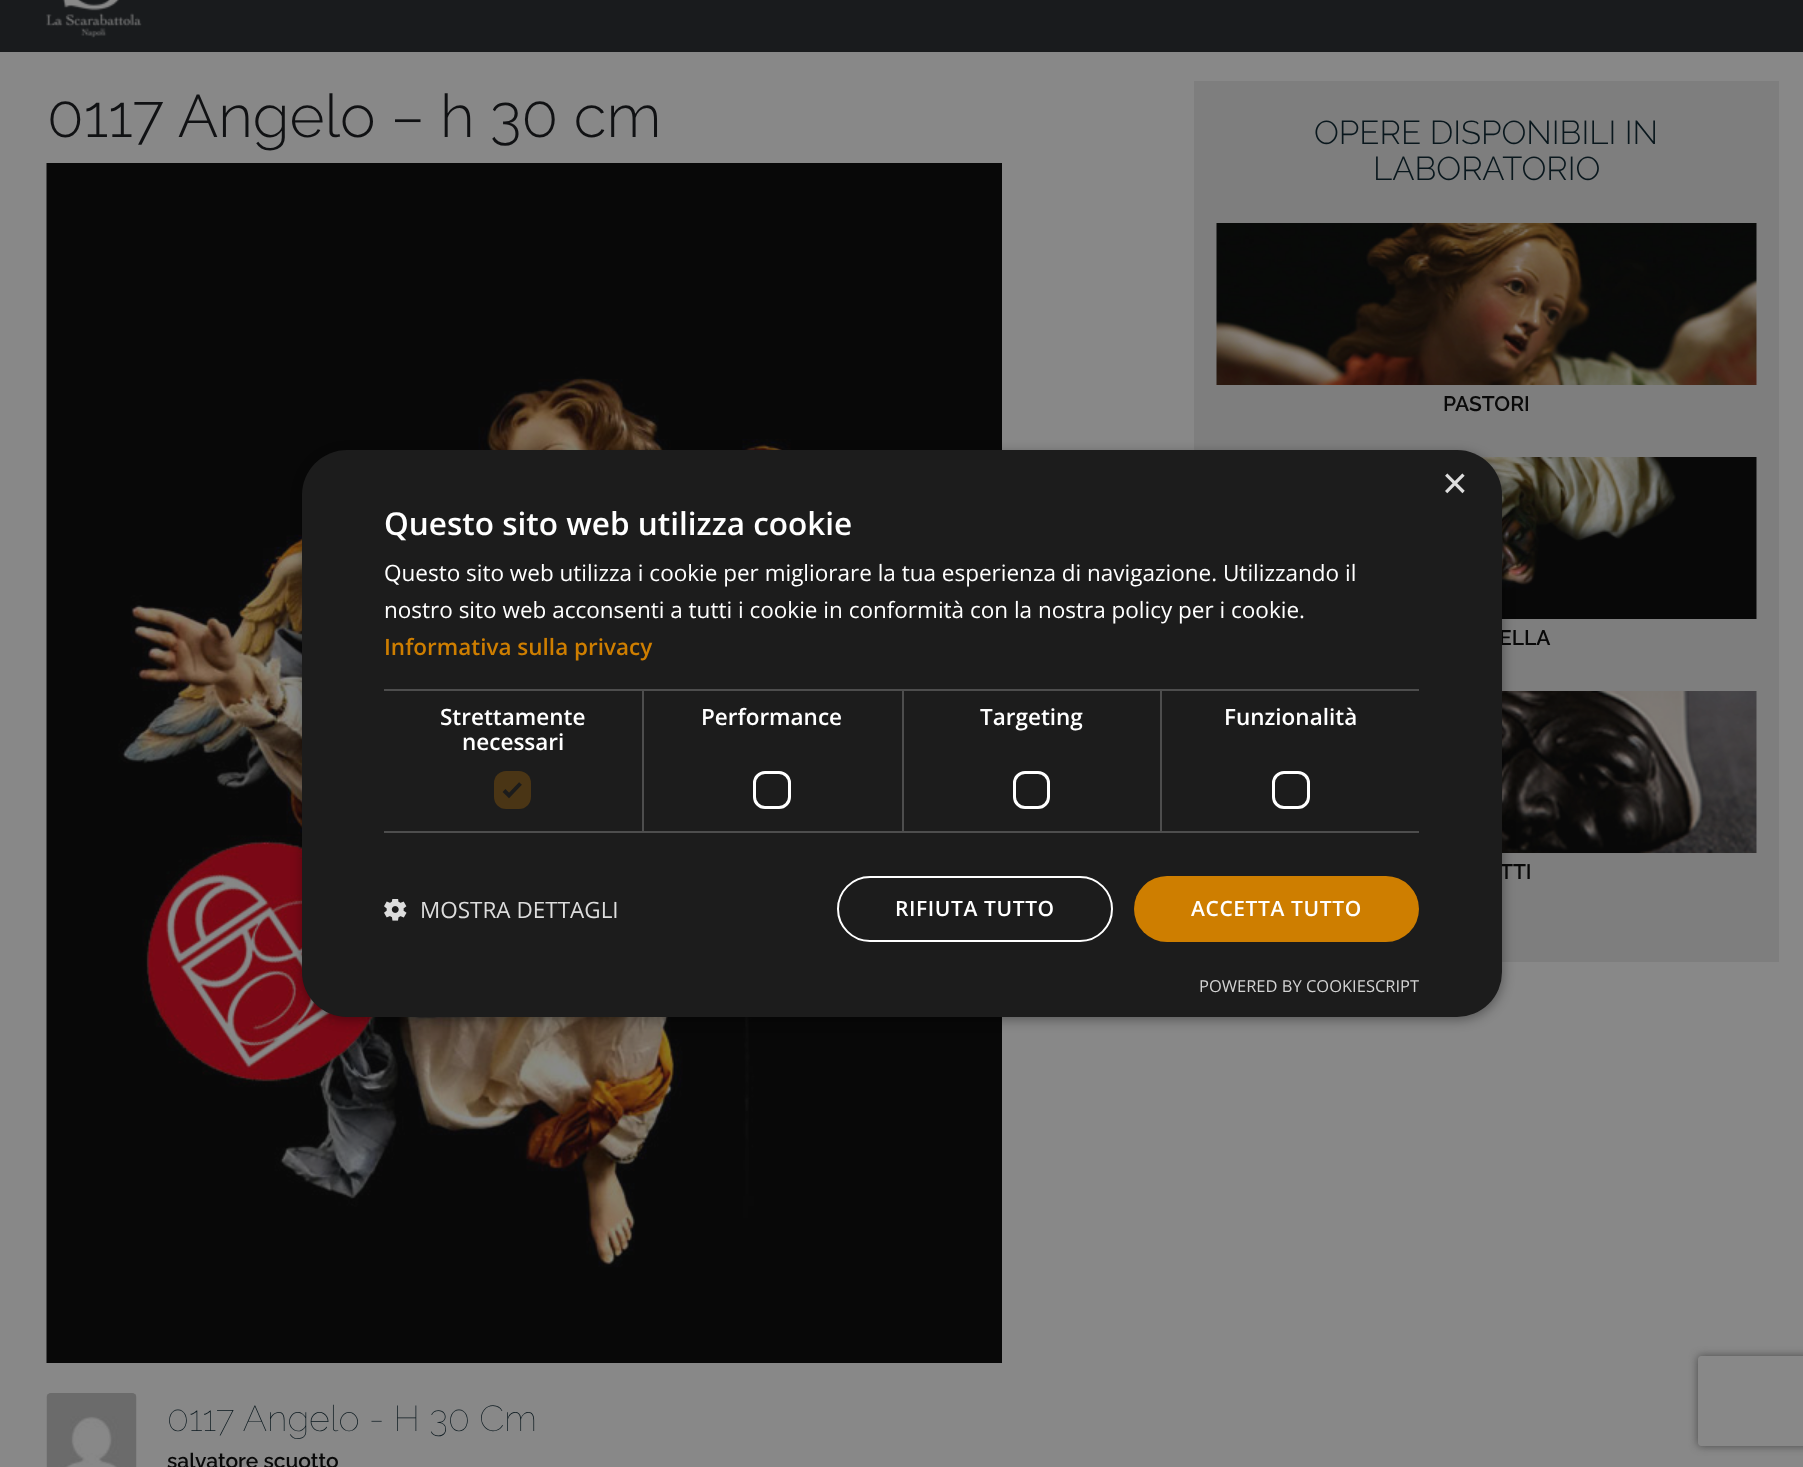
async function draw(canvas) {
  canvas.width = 1803
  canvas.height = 1467
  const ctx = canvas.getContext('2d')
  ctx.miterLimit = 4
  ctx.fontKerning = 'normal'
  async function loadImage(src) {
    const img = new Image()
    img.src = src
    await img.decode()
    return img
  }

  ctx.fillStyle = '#888'
  ctx.fillRect(0, 0, 1803, 1467)
  ctx.fillStyle = '#191b1d'
  ctx.fillRect(0, 0, 1803, 52)
  ctx.drawImage(await loadImage('image0.png'), 46, 0, 96, 38)
  ctx.font = '300 60px Raleway'
  ctx.fillStyle = '#101113'
  ctx.fillText('0117 Angelo – h 30 cm', 47, 137)
  ctx.drawImage(await loadImage('image1.png'), 46, 163, 956, 1200)
  ctx.drawImage(await loadImage('image2.png'), 46, 1393, 91, 74)
  ctx.font = '100 36px Raleway'
  ctx.fillStyle = '#09171d'
  ctx.fillText('0117 Angelo - H 30 Cm', 167, 1431)
  ctx.font = '600 21px Raleway'
  ctx.fillStyle = '#090909'
  ctx.fillText('salvatore scuotto', 167, 1468)
  ctx.fillStyle = '#7e7e7e'
  ctx.fillRect(1194, 81, 585, 881)
  ctx.font = '300 33px Raleway'
  ctx.fillStyle = '#09171d'
  ctx.fillText('OPERE DISPONIBILI IN', 1314, 144)
  ctx.fillText('LABORATORIO', 1373, 180)
  ctx.drawImage(await loadImage('image3.png'), 1216, 223, 541, 162)
  ctx.font = '600 21px Raleway'
  ctx.fillStyle = '#090909'
  ctx.fillText('PASTORI', 1443, 411)
  ctx.drawImage(await loadImage('image4.png'), 1481, 457, 276, 162)
  ctx.fillText('ELLA', 1499, 645)
  ctx.drawImage(await loadImage('image5.png'), 1502, 691, 255, 162)
  ctx.fillText('TTI', 1500, 879)
  ctx.fillStyle = '#00000059'
  ctx.filter = 'blur(6px)'
  ctx.beginPath()
  ctx.roundRect(303, 453, 1200, 567, 45)
  ctx.fill()
  ctx.filter = 'none'
  ctx.fillStyle = '#1c1c1c'
  ctx.beginPath()
  ctx.roundRect(302, 450, 1200, 567, 45)
  ctx.fill()
  ctx.font = '44px Liberation Sans'
  ctx.fillStyle = '#ddd'
  ctx.fillText('×', 1442, 498)
  ctx.font = '600 31.5px Open Sans'
  ctx.fillStyle = '#fff'
  ctx.fillText('Questo sito web utilizza cookie', 384, 535)
  ctx.font = '22.5px Open Sans'
  ctx.fillText('Questo sito web utilizza i cookie per migliorare la tua esperienza di navigazione. Utilizzando il', 384, 581)
  ctx.fillText('nostro sito web acconsenti a tutti i cookie in conformità con la nostra policy per i cookie.', 384, 618)
  ctx.font = '600 22.5px Open Sans'
  ctx.fillStyle = '#ce7e00'
  ctx.fillText('Informativa sulla privacy', 384, 655)
  ctx.fillStyle = '#4d4d4d'
  ctx.fillRect(384, 689, 519, 2)
  ctx.fillRect(642, 689, 2, 144)
  ctx.fillRect(384, 831, 260, 2)
  ctx.fillStyle = '#fff'
  ctx.fillText('Strettamente', 440, 725)
  ctx.fillText('necessari', 462, 750)
  ctx.fillStyle = '#4a3515'
  ctx.beginPath()
  ctx.roundRect(494, 771, 37, 38, 12)
  ctx.fill()
  ctx.beginPath()
  ctx.moveTo(504, 790.5)
  ctx.lineTo(509, 795.5)
  ctx.lineTo(520.5, 783.5)
  ctx.strokeStyle = '#1c1c1c'
  ctx.lineWidth = 3.9
  ctx.stroke()
  ctx.fillStyle = '#4d4d4d'
  ctx.fillRect(902, 689, 2, 144)
  ctx.fillRect(644, 831, 259, 2)
  ctx.fillStyle = '#fff'
  ctx.fillText('Performance', 701, 725)
  ctx.beginPath()
  ctx.roundRect(754.5, 772.5, 35, 35, 10.5)
  ctx.strokeStyle = '#fff'
  ctx.lineWidth = 3
  ctx.stroke()
  ctx.fillStyle = '#4d4d4d'
  ctx.fillRect(903, 689, 258, 2)
  ctx.fillRect(1160, 689, 2, 144)
  ctx.fillRect(903, 831, 516, 2)
  ctx.fillStyle = '#fff'
  ctx.fillText('Targeting', 980, 725)
  ctx.beginPath()
  ctx.roundRect(1014.5, 772.5, 34, 35, 10.5)
  ctx.stroke()
  ctx.fillStyle = '#4d4d4d'
  ctx.fillRect(1161, 689, 258, 2)
  ctx.fillStyle = '#fff'
  ctx.fillText('Funzionalità', 1224, 725)
  ctx.beginPath()
  ctx.roundRect(1273.5, 772.5, 35, 35, 10.5)
  ctx.stroke()
  ctx.drawImage(await loadImage('image6.png'), 384, 899, 23, 22)
  ctx.font = '22.5px Open Sans'
  ctx.fillStyle = '#ddd'
  ctx.fillText('MOSTRA DETTAGLI', 420, 918)
  ctx.beginPath()
  ctx.roundRect(838, 877, 274, 64, 32)
  ctx.lineWidth = 2
  ctx.stroke()
  ctx.letterSpacing = '0.6px'
  ctx.font = '600 21px Open Sans'
  ctx.fillStyle = '#fff'
  ctx.fillText('RIFIUTA TUTTO', 895, 916)
  ctx.fillStyle = '#ce7e00'
  ctx.beginPath()
  ctx.roundRect(1134, 876, 285, 66, 33)
  ctx.fill()
  ctx.fillStyle = '#fff'
  ctx.fillText('ACCETTA TUTTO', 1191, 916)
  ctx.letterSpacing = '0px'
  ctx.font = '16.5px Open Sans'
  ctx.fillStyle = '#d2d2d2'
  ctx.fillText('POWERED BY COOKIESCRIPT', 1199, 992)
  ctx.save()
  ctx.beginPath()
  ctx.moveTo(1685, 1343)
  ctx.lineTo(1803, 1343)
  ctx.lineTo(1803, 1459)
  ctx.lineTo(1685, 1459)
  ctx.closePath()
  ctx.moveTo(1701, 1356)
  ctx.lineTo(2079, 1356)
  ctx.bezierCurveTo(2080.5, 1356, 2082, 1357.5, 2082, 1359)
  ctx.lineTo(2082, 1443)
  ctx.bezierCurveTo(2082, 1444.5, 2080.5, 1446, 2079, 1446)
  ctx.lineTo(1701, 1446)
  ctx.bezierCurveTo(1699.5, 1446, 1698, 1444.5, 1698, 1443)
  ctx.lineTo(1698, 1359)
  ctx.bezierCurveTo(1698, 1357.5, 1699.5, 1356, 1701, 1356)
  ctx.closePath()
  ctx.clip('evenodd')
  ctx.fillStyle = '#494949'
  ctx.filter = 'blur(4px)'
  ctx.beginPath()
  ctx.roundRect(1698, 1356, 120, 90, 3)
  ctx.fill()
  ctx.filter = 'none'
  ctx.restore()
}

draw(document.querySelector('canvas'))
